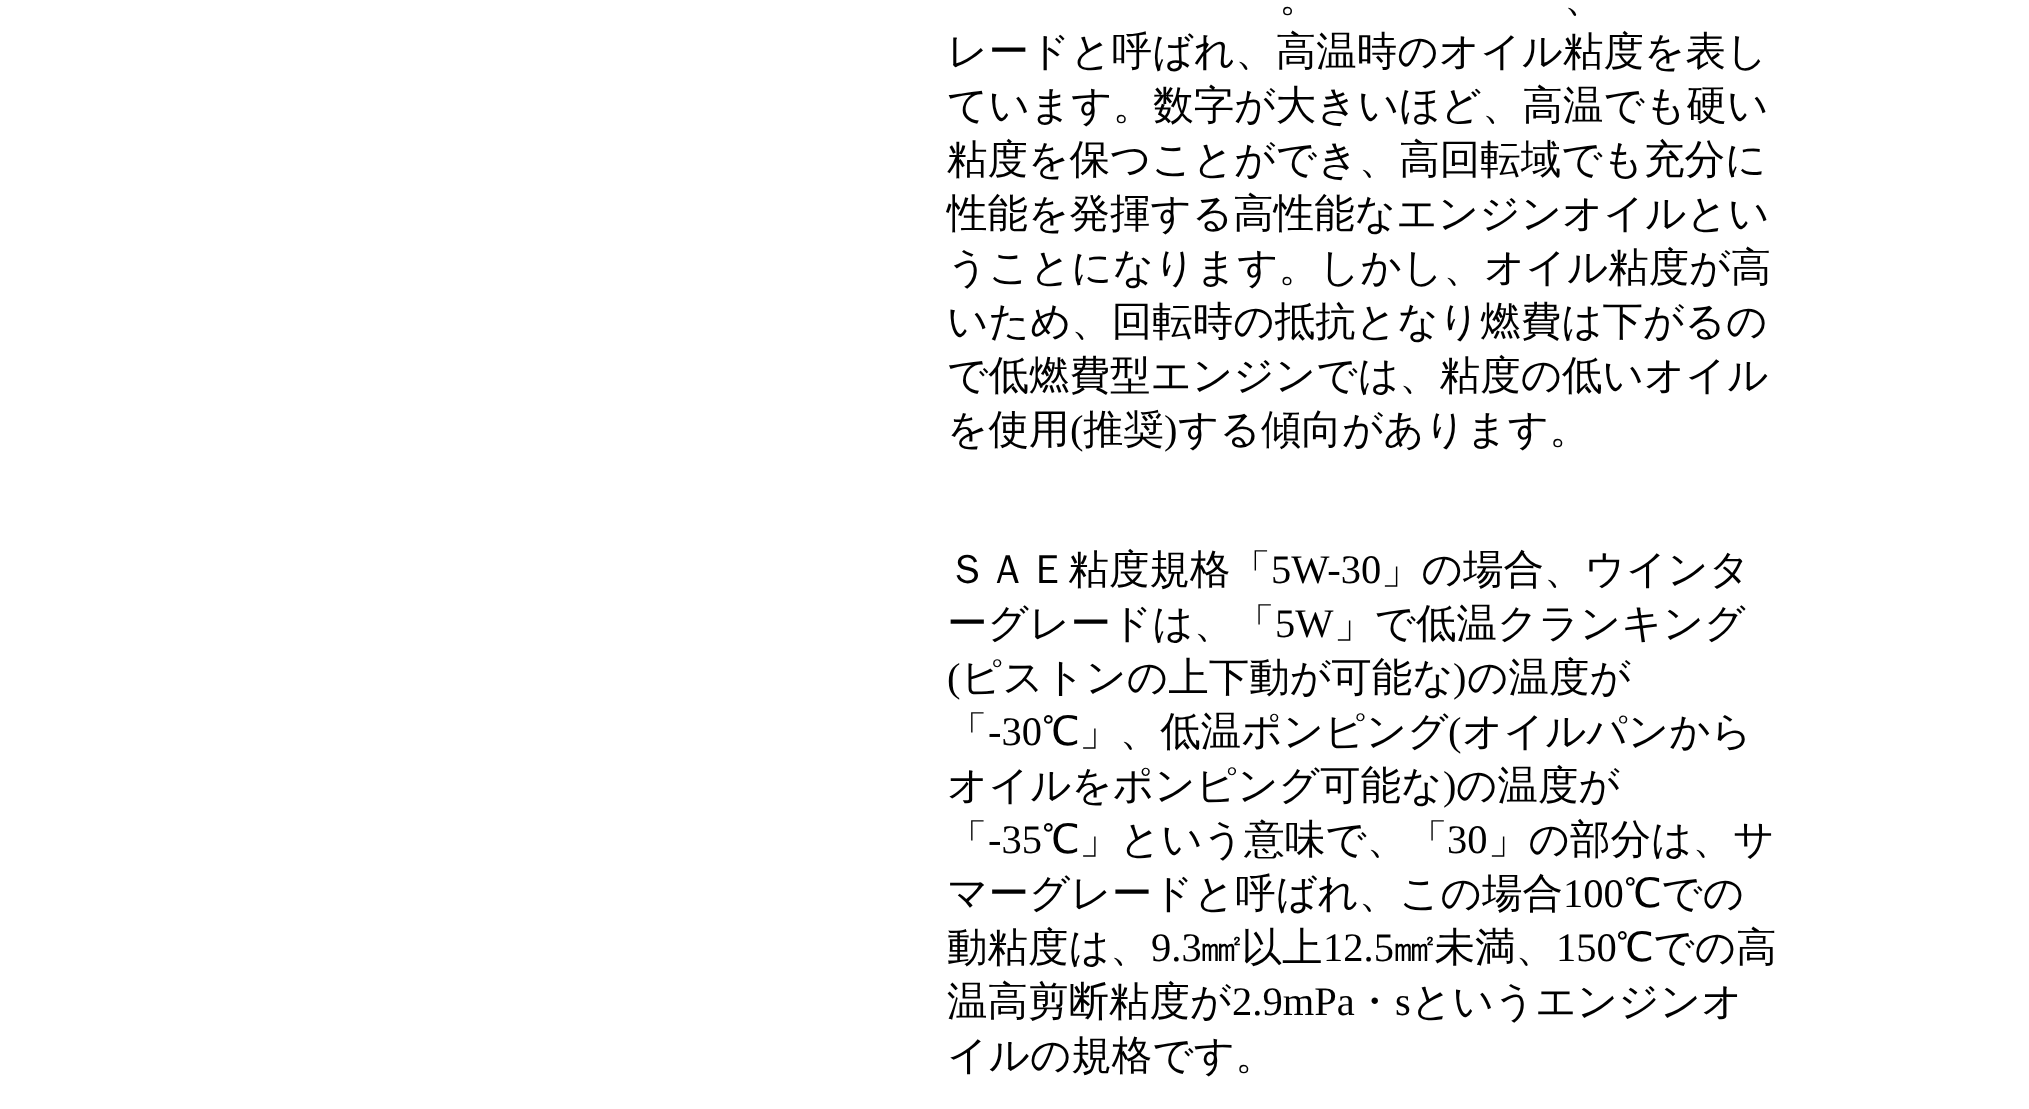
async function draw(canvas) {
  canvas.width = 2029
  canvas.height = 1109
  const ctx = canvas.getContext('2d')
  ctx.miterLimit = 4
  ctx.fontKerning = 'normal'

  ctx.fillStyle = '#fff'
  ctx.fillRect(0, 0, 2029, 1109)
  ctx.font = '500 40.5px WenQuanYi Zen Hei'
  ctx.fillStyle = '#000'
  ctx.fillText('。', 1279, 11)
  ctx.fillText('、', 1564, 11)
  ctx.fillText('レードと呼ばれ、高温時のオイル粘度を表し', 947, 65)
  ctx.fillText('ています。数字が大きいほど、高温でも硬い', 947, 119)
  ctx.fillText('粘度を保つことができ、高回転域でも充分に', 947, 173)
  ctx.fillText('性能を発揮する高性能なエンジンオイルとい', 947, 227)
  ctx.fillText('うことになります。しかし、オイル粘度が高', 947, 281)
  ctx.fillText('いため、回転時の抵抗となり燃費は下がるの', 947, 335)
  ctx.fillText('で低燃費型エンジンでは、粘度の低いオイル', 947, 389)
  ctx.fillText('を使用', 947, 443)
  ctx.font = '40.5px Liberation Serif'
  ctx.fillText('(', 1070, 443)
  ctx.font = '500 40.5px WenQuanYi Zen Hei'
  ctx.fillText('推奨', 1083, 443)
  ctx.font = '40.5px Liberation Serif'
  ctx.fillText(')', 1164, 443)
  ctx.font = '500 40.5px WenQuanYi Zen Hei'
  ctx.fillText('する傾向があります。', 1178, 443)
  ctx.fillText('ＳＡＥ粘度規格「', 947, 583)
  ctx.font = '40.5px Liberation Serif'
  ctx.fillText('5W-30', 1271, 583)
  ctx.font = '500 40.5px WenQuanYi Zen Hei'
  ctx.fillText('」の場合、ウインタ', 1381, 583)
  ctx.fillText('ーグレードは、「', 947, 637)
  ctx.font = '40.5px Liberation Serif'
  ctx.fillText('5W', 1275, 637)
  ctx.font = '500 40.5px WenQuanYi Zen Hei'
  ctx.fillText('」で低温クランキング', 1334, 637)
  ctx.font = '40.5px Liberation Serif'
  ctx.fillText('(', 947, 691)
  ctx.font = '500 40.5px WenQuanYi Zen Hei'
  ctx.fillText('ピストンの上下動が可能な', 961, 691)
  ctx.font = '40.5px Liberation Serif'
  ctx.fillText(')', 1453, 691)
  ctx.font = '500 40.5px WenQuanYi Zen Hei'
  ctx.fillText('の温度が', 1467, 691)
  ctx.fillText('「', 947, 745)
  ctx.font = '40.5px Liberation Serif'
  ctx.fillText('-30', 988, 745)
  ctx.font = '500 40.5px WenQuanYi Zen Hei'
  ctx.fillText('℃」、低温ポンピング', 1042, 745)
  ctx.font = '40.5px Liberation Serif'
  ctx.fillText('(', 1448, 745)
  ctx.font = '500 40.5px WenQuanYi Zen Hei'
  ctx.fillText('オイルパンから', 1462, 745)
  ctx.fillText('オイルをポンピング可能な', 947, 799)
  ctx.font = '40.5px Liberation Serif'
  ctx.fillText(')', 1443, 799)
  ctx.font = '500 40.5px WenQuanYi Zen Hei'
  ctx.fillText('の温度が', 1456, 799)
  ctx.fillText('「', 947, 853)
  ctx.font = '40.5px Liberation Serif'
  ctx.fillText('-35', 988, 853)
  ctx.font = '500 40.5px WenQuanYi Zen Hei'
  ctx.fillText('℃」という意味で、「', 1042, 853)
  ctx.font = '40.5px Liberation Serif'
  ctx.fillText('30', 1447, 853)
  ctx.font = '500 40.5px WenQuanYi Zen Hei'
  ctx.fillText('」の部分は、サ', 1488, 853)
  ctx.fillText('マーグレードと呼ばれ、この場合', 947, 907)
  ctx.font = '40.5px Liberation Serif'
  ctx.fillText('100', 1563, 907)
  ctx.font = '500 40.5px WenQuanYi Zen Hei'
  ctx.fillText('℃での', 1624, 907)
  ctx.fillText('動粘度は、', 947, 961)
  ctx.font = '40.5px Liberation Serif'
  ctx.fillText('9.3', 1151, 961)
  ctx.font = '500 40.5px WenQuanYi Zen Hei'
  ctx.fillText('㎟以上', 1201, 961)
  ctx.font = '40.5px Liberation Serif'
  ctx.fillText('12.5', 1323, 961)
  ctx.font = '500 40.5px WenQuanYi Zen Hei'
  ctx.fillText('㎟未満、', 1394, 961)
  ctx.font = '40.5px Liberation Serif'
  ctx.fillText('150', 1556, 961)
  ctx.font = '500 40.5px WenQuanYi Zen Hei'
  ctx.fillText('℃での高', 1616, 961)
  ctx.fillText('温高剪断粘度が', 947, 1015)
  ctx.font = '40.5px Liberation Serif'
  ctx.fillText('2.9mPa', 1232, 1015)
  ctx.font = '500 40.5px WenQuanYi Zen Hei'
  ctx.fillText('・', 1354, 1015)
  ctx.font = '40.5px Liberation Serif'
  ctx.fillText('s', 1395, 1015)
  ctx.font = '500 40.5px WenQuanYi Zen Hei'
  ctx.fillText('というエンジンオ', 1411, 1015)
  ctx.fillText('イルの規格です。', 947, 1069)
}

draw(document.querySelector('canvas'))
